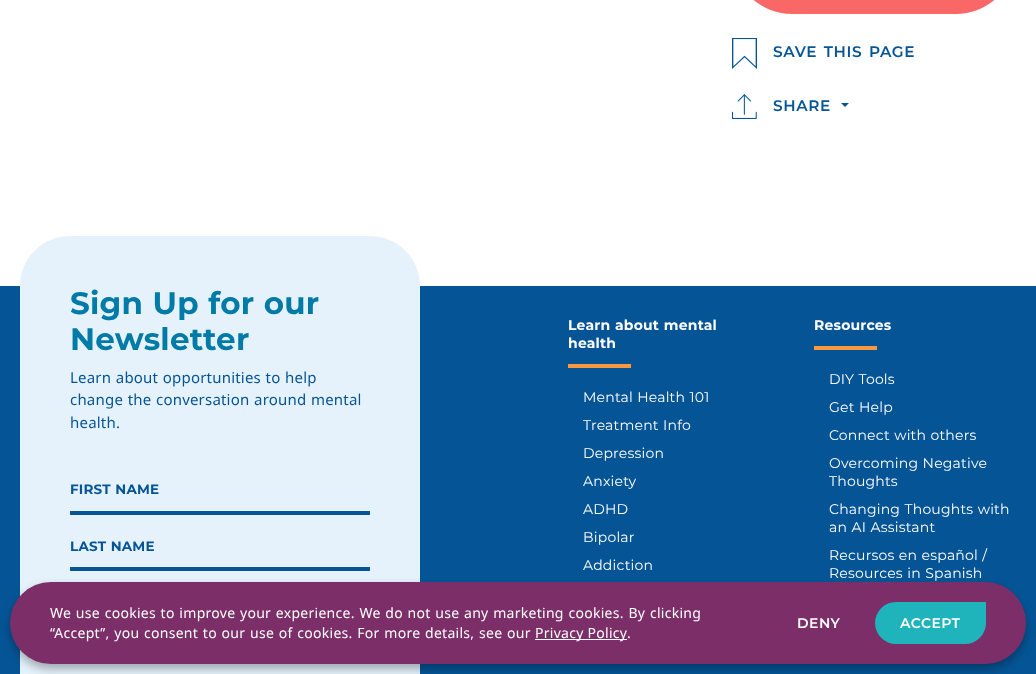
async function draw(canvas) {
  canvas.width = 1036
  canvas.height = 674
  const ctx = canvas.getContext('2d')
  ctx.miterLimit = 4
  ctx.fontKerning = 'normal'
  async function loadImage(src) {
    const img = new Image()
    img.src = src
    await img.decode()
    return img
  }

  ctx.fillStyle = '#fff'
  ctx.fillRect(0, 0, 1036, 674)
  ctx.fillStyle = '#fa6767'
  ctx.beginPath()
  ctx.moveTo(732, -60)
  ctx.lineTo(956, -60)
  ctx.bezierCurveTo(989, -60, 1016, -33, 1016, 0)
  ctx.lineTo(1016, -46)
  ctx.bezierCurveTo(1016, -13, 989, 14, 956, 14)
  ctx.lineTo(792, 14)
  ctx.bezierCurveTo(759, 14, 732, -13, 732, -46)
  ctx.closePath()
  ctx.fill()
  ctx.drawImage(await loadImage('image0.png'), 732, 38, 25, 31)
  ctx.letterSpacing = '0.6px'
  ctx.wordSpacing = '2px'
  ctx.font = '600 15.25px Montserrat'
  ctx.fillStyle = '#055596'
  ctx.fillText('SAVE THIS PAGE', 773, 57)
  ctx.drawImage(await loadImage('image1.png'), 732, 94, 25, 25)
  ctx.wordSpacing = '0px'
  ctx.fillText('SHARE', 773, 111)
  ctx.beginPath()
  ctx.moveTo(841, 103)
  ctx.lineTo(849, 103)
  ctx.lineTo(845, 107)
  ctx.closePath()
  ctx.fill()
  ctx.fillRect(0, 286, 1036, 388)
  ctx.fillStyle = '#e5f2fc'
  ctx.beginPath()
  ctx.moveTo(70, 236)
  ctx.lineTo(370, 236)
  ctx.bezierCurveTo(397.5, 236, 420, 258.5, 420, 286)
  ctx.lineTo(420, 674)
  ctx.bezierCurveTo(420, 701.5, 397.5, 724, 370, 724)
  ctx.lineTo(20, 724)
  ctx.lineTo(20, 286)
  ctx.bezierCurveTo(20, 258.5, 42.5, 236, 70, 236)
  ctx.closePath()
  ctx.fill()
  ctx.letterSpacing = '0.2px'
  ctx.wordSpacing = '0.5px'
  ctx.font = 'bold 31px Montserrat'
  ctx.fillStyle = '#007ba7'
  ctx.fillText('Sign Up for our', 70, 314)
  ctx.wordSpacing = '0px'
  ctx.fillText('Newsletter', 70, 350)
  ctx.wordSpacing = '0.5px'
  ctx.font = '15px Noto Sans'
  ctx.fillStyle = '#055596'
  ctx.fillText('Learn about opportunities to help', 70, 383)
  ctx.fillText('change the conversation around mental', 70, 405)
  ctx.wordSpacing = '0px'
  ctx.fillText('health.', 70, 428)
  ctx.wordSpacing = '0.5px'
  ctx.font = 'bold 13.5px Montserrat'
  ctx.fillText('FIRST NAME', 70, 494)
  ctx.fillRect(70, 511, 300, 4)
  ctx.fillText('LAST NAME', 70, 551)
  ctx.fillRect(70, 567, 300, 4)
  ctx.font = 'bold 14px Montserrat'
  ctx.fillStyle = '#fff'
  ctx.fillText('Learn about mental', 568, 330)
  ctx.wordSpacing = '0px'
  ctx.fillText('health', 568, 348)
  ctx.fillStyle = '#f89941'
  ctx.fillRect(568, 364, 63, 4)
  ctx.wordSpacing = '0.5px'
  ctx.font = '14px Montserrat'
  ctx.fillStyle = '#fff'
  ctx.fillText('Mental Health 101', 583, 402)
  ctx.fillText('Treatment Info', 583, 430)
  ctx.wordSpacing = '0px'
  ctx.fillText('Depression', 583, 458)
  ctx.fillText('Anxiety', 583, 486)
  ctx.fillText('ADHD', 583, 514)
  ctx.fillText('Bipolar', 583, 542)
  ctx.fillText('Addiction', 583, 570)
  ctx.font = 'bold 14px Montserrat'
  ctx.fillText('Resources', 814, 330)
  ctx.fillStyle = '#f89941'
  ctx.fillRect(814, 346, 63, 4)
  ctx.wordSpacing = '0.5px'
  ctx.font = '14px Montserrat'
  ctx.fillStyle = '#fff'
  ctx.fillText('DIY Tools', 829, 384)
  ctx.fillText('Get Help', 829, 412)
  ctx.fillText('Connect with others', 829, 440)
  ctx.fillText('Overcoming Negative', 829, 468)
  ctx.wordSpacing = '0px'
  ctx.fillText('Thoughts', 829, 486)
  ctx.wordSpacing = '0.5px'
  ctx.fillText('Changing Thoughts with', 829, 514)
  ctx.fillText('an AI Assistant', 829, 532)
  ctx.fillText('Recursos en español /', 829, 560)
  ctx.fillText('Resources in Spanish', 829, 578)
  ctx.fillStyle = '#0000004d'
  ctx.filter = 'blur(5px)'
  ctx.beginPath()
  ctx.roundRect(10, 587, 1016, 82, 41)
  ctx.fill()
  ctx.filter = 'none'
  ctx.fillStyle = '#7b2e67'
  ctx.beginPath()
  ctx.roundRect(10, 582, 1016, 82, 41)
  ctx.fill()
  ctx.letterSpacing = '0.28px'
  ctx.wordSpacing = '0.75px'
  ctx.font = '14px Noto Sans'
  ctx.fillStyle = '#fff'
  ctx.fillText('We use cookies to improve your experience. We do not use any marketing cookies. By clicking', 50, 618)
  ctx.fillText('“Accept”, you consent to our use of cookies. For more details, see our', 50, 638)
  ctx.fillRect(535, 639, 92, 1)
  ctx.wordSpacing = '0px'
  ctx.fillText('Privacy Policy', 535, 638)
  ctx.fillText('.', 627, 638)
  ctx.letterSpacing = '0.5px'
  ctx.font = '600 14px Montserrat'
  ctx.fillText('DENY', 797, 628)
  ctx.fillStyle = '#1fb4bb'
  ctx.beginPath()
  ctx.roundRect(875, 602, 111, 42, [21, 0, 21, 21])
  ctx.fill()
  ctx.fillStyle = '#fff'
  ctx.fillText('ACCEPT', 900, 628)
}

draw(document.querySelector('canvas'))
